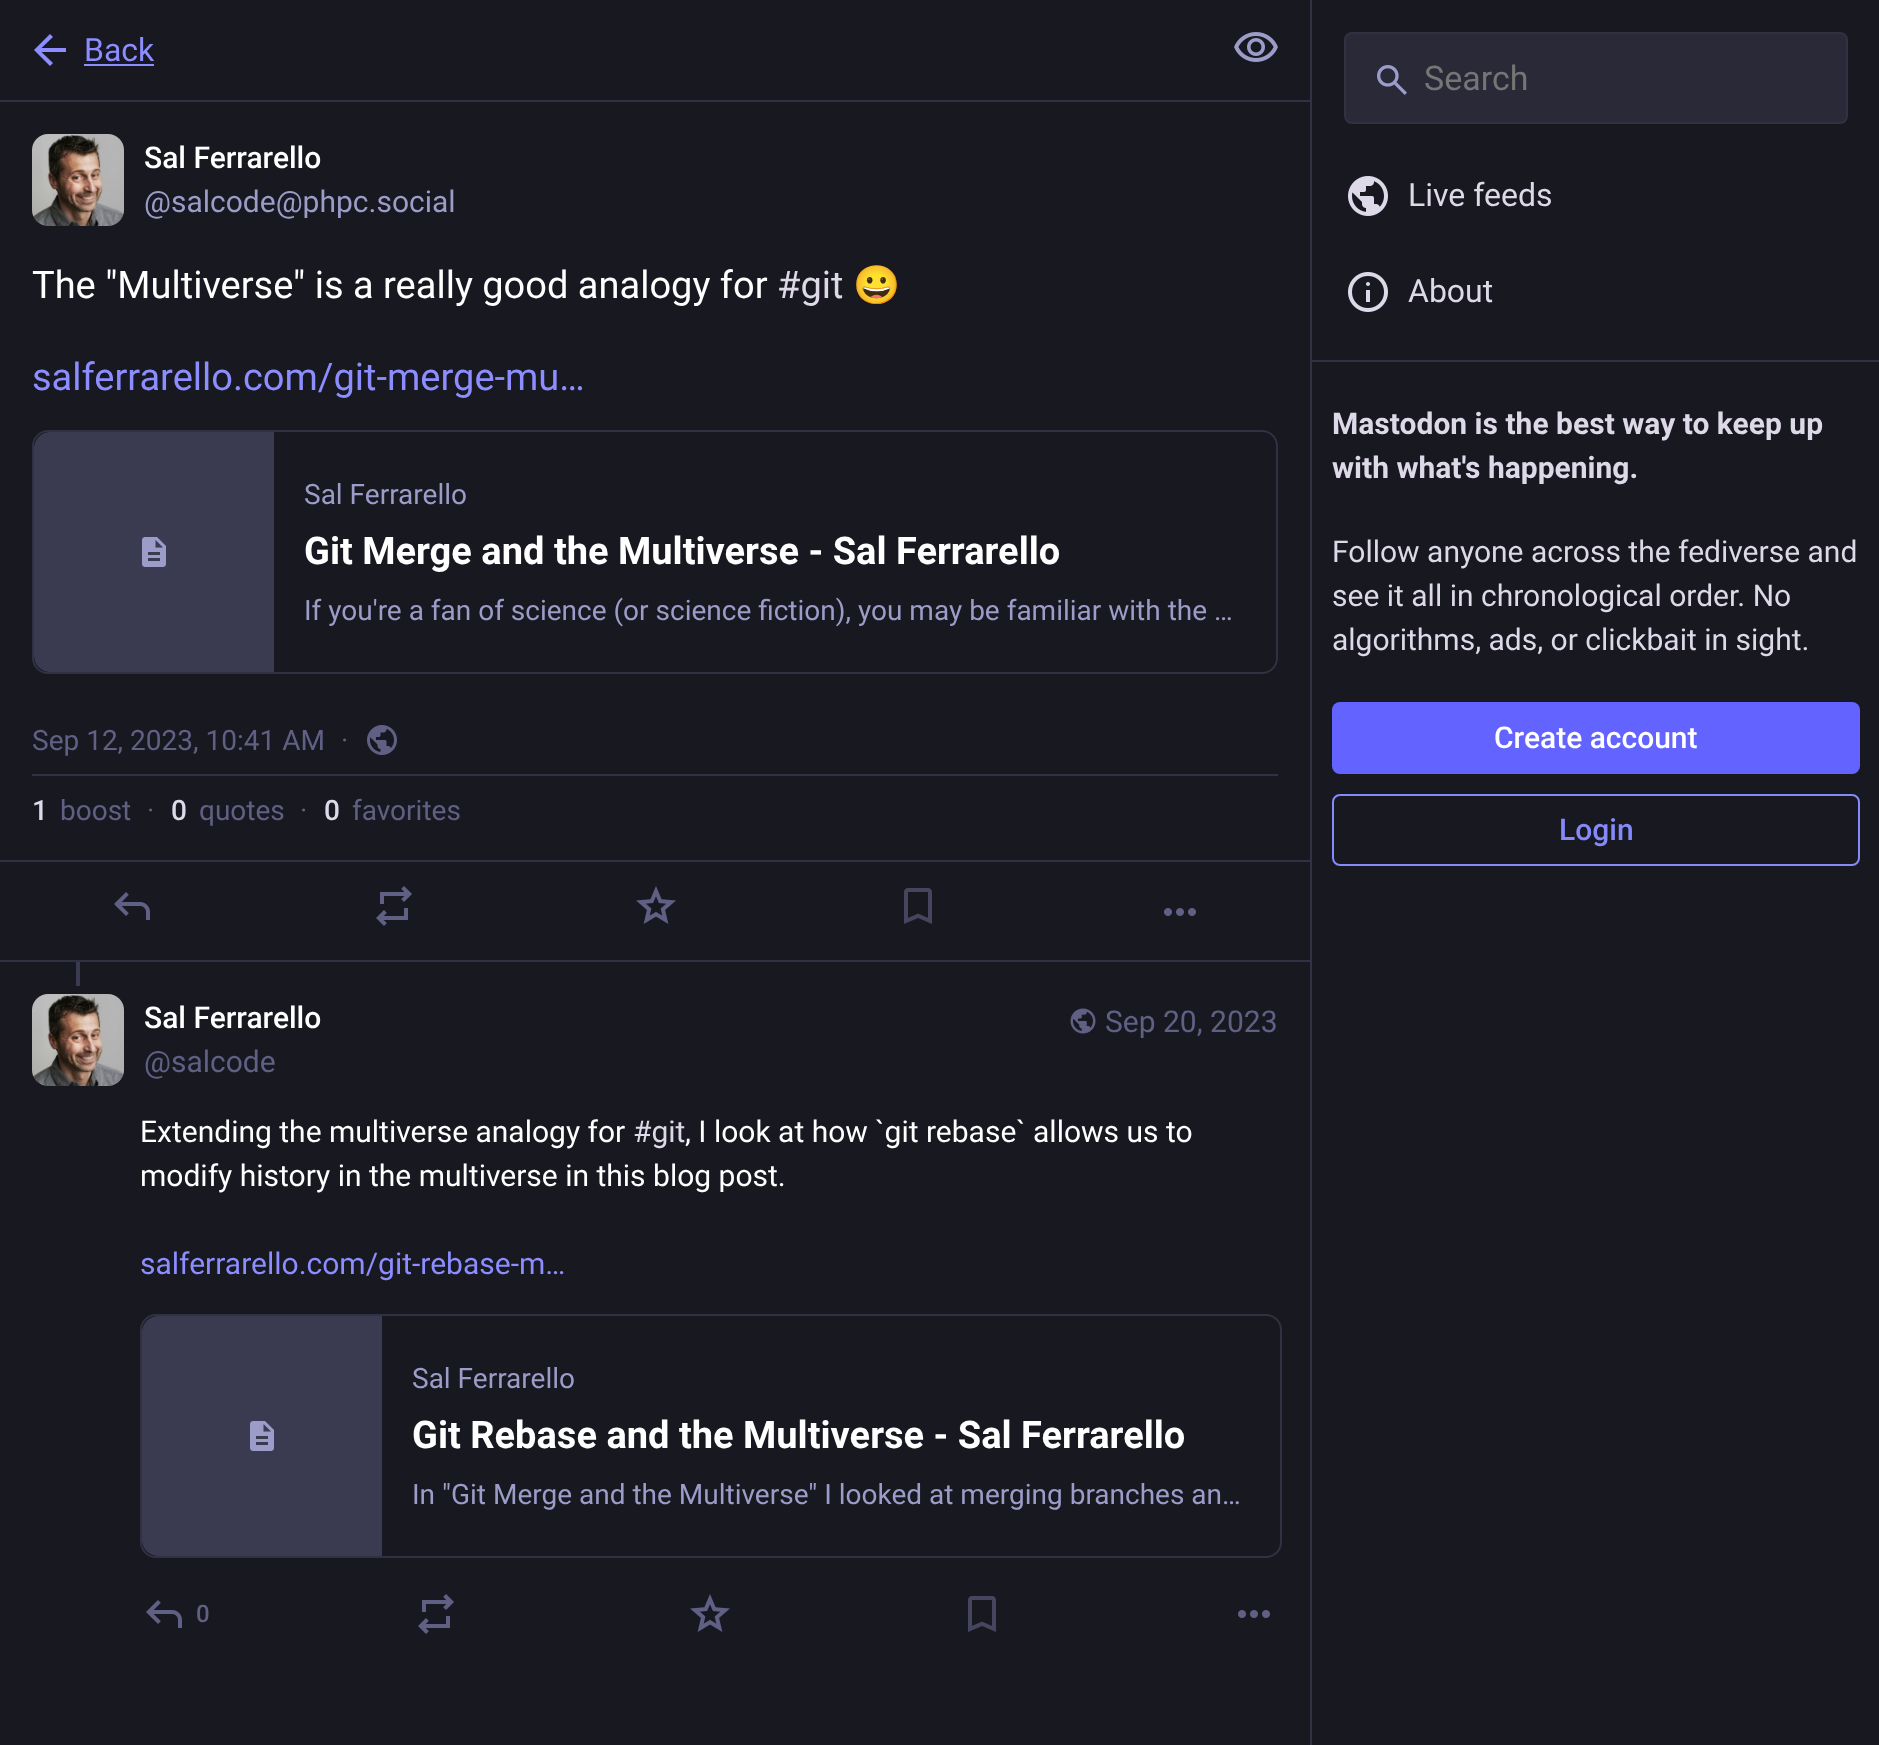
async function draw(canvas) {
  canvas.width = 1879
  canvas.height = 1745
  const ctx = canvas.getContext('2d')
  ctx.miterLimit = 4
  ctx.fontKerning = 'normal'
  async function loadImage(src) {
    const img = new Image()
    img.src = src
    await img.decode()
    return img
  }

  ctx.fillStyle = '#181821'
  ctx.fillRect(0, 0, 1879, 1745)
  ctx.fillStyle = '#313144'
  ctx.fillRect(0, 100, 1310, 2)
  ctx.fillStyle = '#8c8dff'
  ctx.beginPath()
  ctx.moveTo(41.5, 52)
  ctx.lineTo(53, 63)
  ctx.lineTo(50, 66)
  ctx.lineTo(34, 50)
  ctx.lineTo(50, 34)
  ctx.lineTo(53, 37)
  ctx.lineTo(41.5, 48)
  ctx.lineTo(66, 48)
  ctx.lineTo(66, 52)
  ctx.closePath()
  ctx.fill()
  ctx.font = '32px Roboto'
  ctx.fillText('Back', 84, 61)
  ctx.fillRect(84, 64, 70, 2)
  ctx.drawImage(await loadImage('image0.png'), 1234, 32, 44, 30)
  ctx.fillStyle = '#20202c'
  ctx.beginPath()
  ctx.roundRect(32, 134, 92, 92, 16)
  ctx.fill()
  ctx.drawImage(await loadImage('image1.png'), 32, 134, 92, 92)
  ctx.font = '500 30px Roboto'
  ctx.fillStyle = '#fff'
  ctx.fillText('Sal Ferrarello', 144, 168)
  ctx.font = '30px Roboto'
  ctx.fillStyle = '#9c9cc9'
  ctx.fillText('@salcode@phpc.social', 144, 212)
  ctx.font = '38px Roboto'
  ctx.fillStyle = '#fff'
  ctx.fillText('The "Multiverse" is a really good analogy for', 32, 298)
  ctx.fillStyle = '#ddd9e8'
  ctx.fillText('#git', 777, 298)
  ctx.font = '38px Noto Color Emoji'
  ctx.fillStyle = '#fff'
  ctx.fillText('😀', 853, 298)
  ctx.font = '38px Roboto'
  ctx.fillStyle = '#8c8dff'
  ctx.fillText('salferrarello.com/git-merge-mu…', 32, 390)
  ctx.beginPath()
  ctx.roundRect(33, 431, 1244, 242, 15)
  ctx.strokeStyle = '#313144'
  ctx.lineWidth = 2
  ctx.stroke()
  ctx.save()
  ctx.beginPath()
  ctx.roundRect(34, 432, 1242, 240, 14)
  ctx.clip()
  ctx.fillStyle = '#3a3a50'
  ctx.beginPath()
  ctx.roundRect(34, 432, 240, 240, [16, 0, 0, 16])
  ctx.fill()
  ctx.restore()
  ctx.drawImage(await loadImage('image2.png'), 142, 537, 24, 30)
  ctx.font = '28px Roboto'
  ctx.fillStyle = '#9c9cc9'
  ctx.fillText('Sal Ferrarello', 304, 504)
  ctx.font = 'bold 38px Roboto'
  ctx.fillStyle = '#fff'
  ctx.fillText('Git Merge and the Multiverse - Sal Ferrarello', 304, 564)
  ctx.font = '28px Roboto'
  ctx.fillStyle = '#9c9cc9'
  ctx.fillText('If you\'re a fan of science (or science fiction), you may be familiar with the …', 304, 620)
  ctx.fillStyle = '#313144'
  ctx.fillRect(32, 774, 1246, 2)
  ctx.fillStyle = '#606085'
  ctx.fillText('Sep 12, 2023, 10:41 AM', 32, 750)
  ctx.fillText('·', 341, 750)
  ctx.drawImage(await loadImage('image3.png'), 367, 725, 30, 30)
  ctx.font = '500 28px Roboto'
  ctx.fillStyle = '#ddd9e8'
  ctx.fillText('1', 32, 820)
  ctx.font = '28px Roboto'
  ctx.fillStyle = '#606085'
  ctx.fillText('boost', 60, 820)
  ctx.fillText('·', 147, 820)
  ctx.font = '500 28px Roboto'
  ctx.fillStyle = '#ddd9e8'
  ctx.fillText('0', 171, 820)
  ctx.font = '28px Roboto'
  ctx.fillStyle = '#606085'
  ctx.fillText('quotes', 199, 820)
  ctx.fillText('·', 300, 820)
  ctx.font = '500 28px Roboto'
  ctx.fillStyle = '#ddd9e8'
  ctx.fillText('0', 324, 820)
  ctx.font = '28px Roboto'
  ctx.fillStyle = '#606085'
  ctx.fillText('favorites', 352, 820)
  ctx.fillStyle = '#313144'
  ctx.fillRect(0, 860, 1310, 2)
  ctx.fillRect(0, 960, 1310, 2)
  ctx.drawImage(await loadImage('image4.png'), 114, 892, 36, 28)
  ctx.drawImage(await loadImage('image5.png'), 376, 886, 36, 40)
  ctx.drawImage(await loadImage('image6.png'), 636, 886, 40, 38)
  ctx.drawImage(await loadImage('image7.png'), 904, 888, 28, 36)
  ctx.drawImage(await loadImage('image8.png'), 1164, 908, 32, 8)
  ctx.fillStyle = '#3a3a50'
  ctx.fillRect(76, 962, 4, 24)
  ctx.fillStyle = '#20202c'
  ctx.beginPath()
  ctx.roundRect(32, 994, 92, 92, 16)
  ctx.fill()
  ctx.drawImage(await loadImage('image1.png'), 32, 994, 92, 92)
  ctx.font = '500 30px Roboto'
  ctx.fillStyle = '#fff'
  ctx.fillText('Sal Ferrarello', 144, 1028)
  ctx.font = '30px Roboto'
  ctx.fillStyle = '#606085'
  ctx.fillText('@salcode', 144, 1072)
  ctx.drawImage(await loadImage('image9.png'), 1070, 1008, 26, 26)
  ctx.fillText('Sep 20, 2023', 1105, 1032)
  ctx.fillStyle = '#fff'
  ctx.fillText('Extending the multiverse analogy for', 140, 1142)
  ctx.fillStyle = '#ddd9e8'
  ctx.fillText('#git', 633, 1142)
  ctx.fillStyle = '#fff'
  ctx.fillText(', I look at how `git rebase` allows us to', 685, 1142)
  ctx.fillText('modify history in the multiverse in this blog post.', 140, 1186)
  ctx.fillStyle = '#8c8dff'
  ctx.fillText('salferrarello.com/git-rebase-m…', 140, 1274)
  ctx.beginPath()
  ctx.roundRect(141, 1315, 1140, 242, 15)
  ctx.stroke()
  ctx.save()
  ctx.beginPath()
  ctx.roundRect(142, 1316, 1138, 240, 14)
  ctx.clip()
  ctx.fillStyle = '#3a3a50'
  ctx.beginPath()
  ctx.roundRect(142, 1316, 240, 240, [16, 0, 0, 16])
  ctx.fill()
  ctx.restore()
  ctx.drawImage(await loadImage('image2.png'), 250, 1421, 24, 30)
  ctx.font = '28px Roboto'
  ctx.fillStyle = '#9c9cc9'
  ctx.fillText('Sal Ferrarello', 412, 1388)
  ctx.font = 'bold 38px Roboto'
  ctx.fillStyle = '#fff'
  ctx.fillText('Git Rebase and the Multiverse - Sal Ferrarello', 412, 1448)
  ctx.font = '28px Roboto'
  ctx.fillStyle = '#9c9cc9'
  ctx.fillText('In "Git Merge and the Multiverse" I looked at merging branches an…', 412, 1504)
  ctx.drawImage(await loadImage('image4.png'), 146, 1600, 36, 28)
  ctx.font = '500 24px Roboto'
  ctx.fillStyle = '#606085'
  ctx.fillText('0', 196, 1622)
  ctx.drawImage(await loadImage('image5.png'), 418, 1594, 36, 40)
  ctx.drawImage(await loadImage('image6.png'), 690, 1594, 40, 38)
  ctx.drawImage(await loadImage('image7.png'), 968, 1596, 28, 36)
  ctx.drawImage(await loadImage('image8.png'), 1238, 1610, 32, 8)
  ctx.fillStyle = '#313144'
  ctx.fillRect(1310, 0, 2, 1745)
  ctx.fillStyle = '#292938'
  ctx.beginPath()
  ctx.roundRect(1345, 33, 502, 90, 7)
  ctx.fill()
  ctx.stroke()
  ctx.drawImage(await loadImage('image10.png'), 1377, 65, 30, 30)
  ctx.font = '34px Roboto'
  ctx.fillStyle = '#757575'
  ctx.fillText('Search', 1424, 90)
  ctx.drawImage(await loadImage('image11.png'), 1348, 176, 40, 40)
  ctx.font = '32px Roboto'
  ctx.fillStyle = '#ddd9e8'
  ctx.fillText('Live feeds', 1408, 206)
  ctx.drawImage(await loadImage('image12.png'), 1348, 272, 40, 40)
  ctx.fillText('About', 1408, 302)
  ctx.fillStyle = '#313144'
  ctx.fillRect(1312, 360, 567, 2)
  ctx.font = 'bold 30px Roboto'
  ctx.fillStyle = '#ddd9e8'
  ctx.fillText('Mastodon is the best way to keep up', 1332, 434)
  ctx.fillText('with what\'s happening.', 1332, 478)
  ctx.font = '30px Roboto'
  ctx.fillText('Follow anyone across the fediverse and', 1332, 562)
  ctx.fillText('see it all in chronological order. No', 1332, 606)
  ctx.fillText('algorithms, ads, or clickbait in sight.', 1332, 650)
  ctx.fillStyle = '#6364ff'
  ctx.beginPath()
  ctx.roundRect(1332, 702, 528, 72, 8)
  ctx.fill()
  ctx.font = '500 30px Roboto'
  ctx.fillStyle = '#fff'
  ctx.fillText('Create account', 1494, 748)
  ctx.beginPath()
  ctx.roundRect(1333, 795, 526, 70, 7)
  ctx.strokeStyle = '#858afa'
  ctx.stroke()
  ctx.fillStyle = '#858afa'
  ctx.fillText('Login', 1559, 840)
}

draw(document.querySelector('canvas'))
